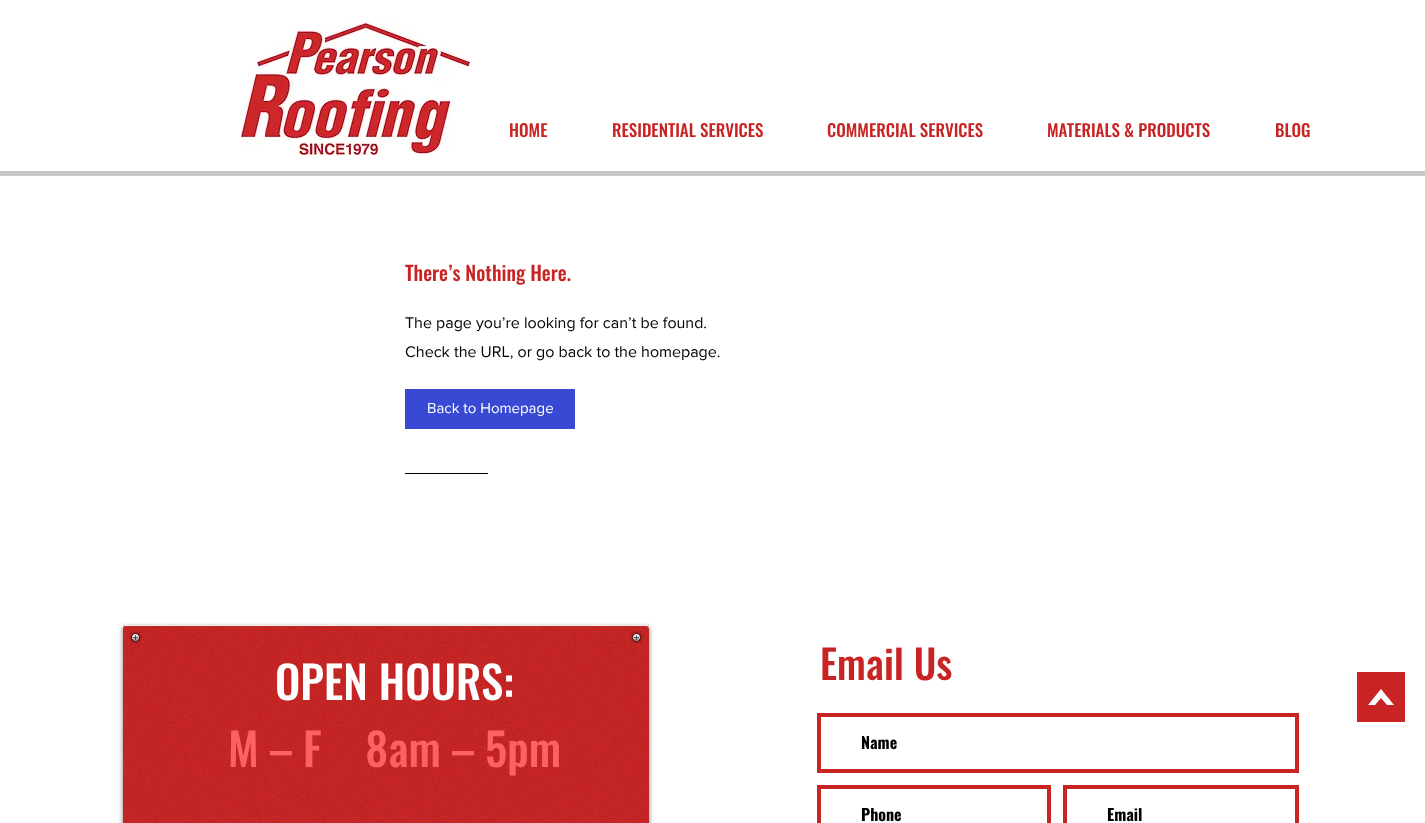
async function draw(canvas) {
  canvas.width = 1425
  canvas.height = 823
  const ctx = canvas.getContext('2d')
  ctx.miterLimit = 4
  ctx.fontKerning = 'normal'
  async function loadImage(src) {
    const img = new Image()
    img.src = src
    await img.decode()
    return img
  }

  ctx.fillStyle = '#fff'
  ctx.fillRect(0, 0, 1425, 823)
  ctx.drawImage(await loadImage('image0.png'), 241, 23, 229, 132)
  ctx.font = '500 17px Oswald'
  ctx.fillStyle = '#c92424'
  ctx.fillText('HOME', 509, 137)
  ctx.fillText('RESIDENTIAL SERVICES', 612, 137)
  ctx.fillText('COMMERCIAL SERVICES', 827, 137)
  ctx.fillText('MATERIALS & PRODUCTS', 1047, 137)
  ctx.fillText('BLOG', 1275, 137)
  ctx.fillStyle = '#c7c7c7'
  ctx.fillRect(0, 171, 1425, 5)
  ctx.font = '500 20px Oswald'
  ctx.fillStyle = '#c92424'
  ctx.fillText('There’s Nothing Here.', 405, 281)
  ctx.font = '16px "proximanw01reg"'
  ctx.fillStyle = '#000'
  ctx.fillText('The page you’re looking for can’t be found.', 405, 328)
  ctx.fillText('Check the URL, or go back to the homepage.', 405, 357)
  ctx.fillStyle = '#384ad3'
  ctx.fillRect(405, 389, 170, 40)
  ctx.font = '15px "proximanw01reg"'
  ctx.fillStyle = '#fff'
  ctx.fillText('Back to Homepage', 427, 413)
  ctx.fillStyle = '#000'
  ctx.fillRect(405, 473, 83, 1)
  ctx.fillStyle = '#00000087'
  ctx.filter = 'blur(2.5px)'
  ctx.beginPath()
  ctx.roundRect(123, 627, 526, 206, 2)
  ctx.fill()
  ctx.filter = 'none'
  ctx.fillStyle = '#c92424'
  ctx.beginPath()
  ctx.roundRect(123, 625, 526, 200, 2)
  ctx.fill()
  ctx.drawImage(await loadImage('image1.png'), 123, 625, 526, 198)
  ctx.fillStyle = '#ffffffeb'
  ctx.beginPath()
  ctx.moveTo(125, 626)
  ctx.lineTo(647, 626)
  ctx.lineTo(649, 628)
  ctx.bezierCurveTo(649, 627, 649, 625, 647, 625)
  ctx.lineTo(125, 625)
  ctx.lineTo(123, 626)
  ctx.lineTo(123, 628)
  ctx.bezierCurveTo(123, 627, 124, 626, 125, 626)
  ctx.closePath()
  ctx.fill()
  ctx.drawImage(await loadImage('image2.png'), 129, 631, 13, 13)
  ctx.drawImage(await loadImage('image2.png'), 630, 631, 13, 13)
  ctx.font = '500 45px Oswald'
  ctx.fillStyle = '#fff'
  ctx.fillText('OPEN HOURS:', 275, 700)
  ctx.fillStyle = '#ff6161'
  ctx.fillText('M – F    8am – 5pm', 228, 767)
  ctx.font = '500 40px Oswald'
  ctx.fillStyle = '#c92424'
  ctx.fillText('Email Us', 820, 680)
  ctx.strokeStyle = '#c92424'
  ctx.lineWidth = 4
  ctx.strokeRect(819, 715, 478, 56)
  ctx.font = 'bold 16px Oswald'
  ctx.fillStyle = '#000'
  ctx.fillText('Name', 861, 749)
  ctx.strokeRect(819, 787, 230, 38)
  ctx.fillText('Phone', 861, 821)
  ctx.strokeRect(1065, 787, 232, 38)
  ctx.fillText('Email', 1107, 821)
  ctx.fillStyle = '#c92424'
  ctx.beginPath()
  ctx.moveTo(1357, 672)
  ctx.lineTo(1357, 722)
  ctx.lineTo(1405, 722)
  ctx.lineTo(1405, 672)
  ctx.closePath()
  ctx.moveTo(1387, 705)
  ctx.lineTo(1381, 698)
  ctx.lineTo(1375, 705)
  ctx.lineTo(1368, 705)
  ctx.lineTo(1381, 689)
  ctx.lineTo(1394, 705)
  ctx.closePath()
  ctx.fill()
}

draw(document.querySelector('canvas'))
